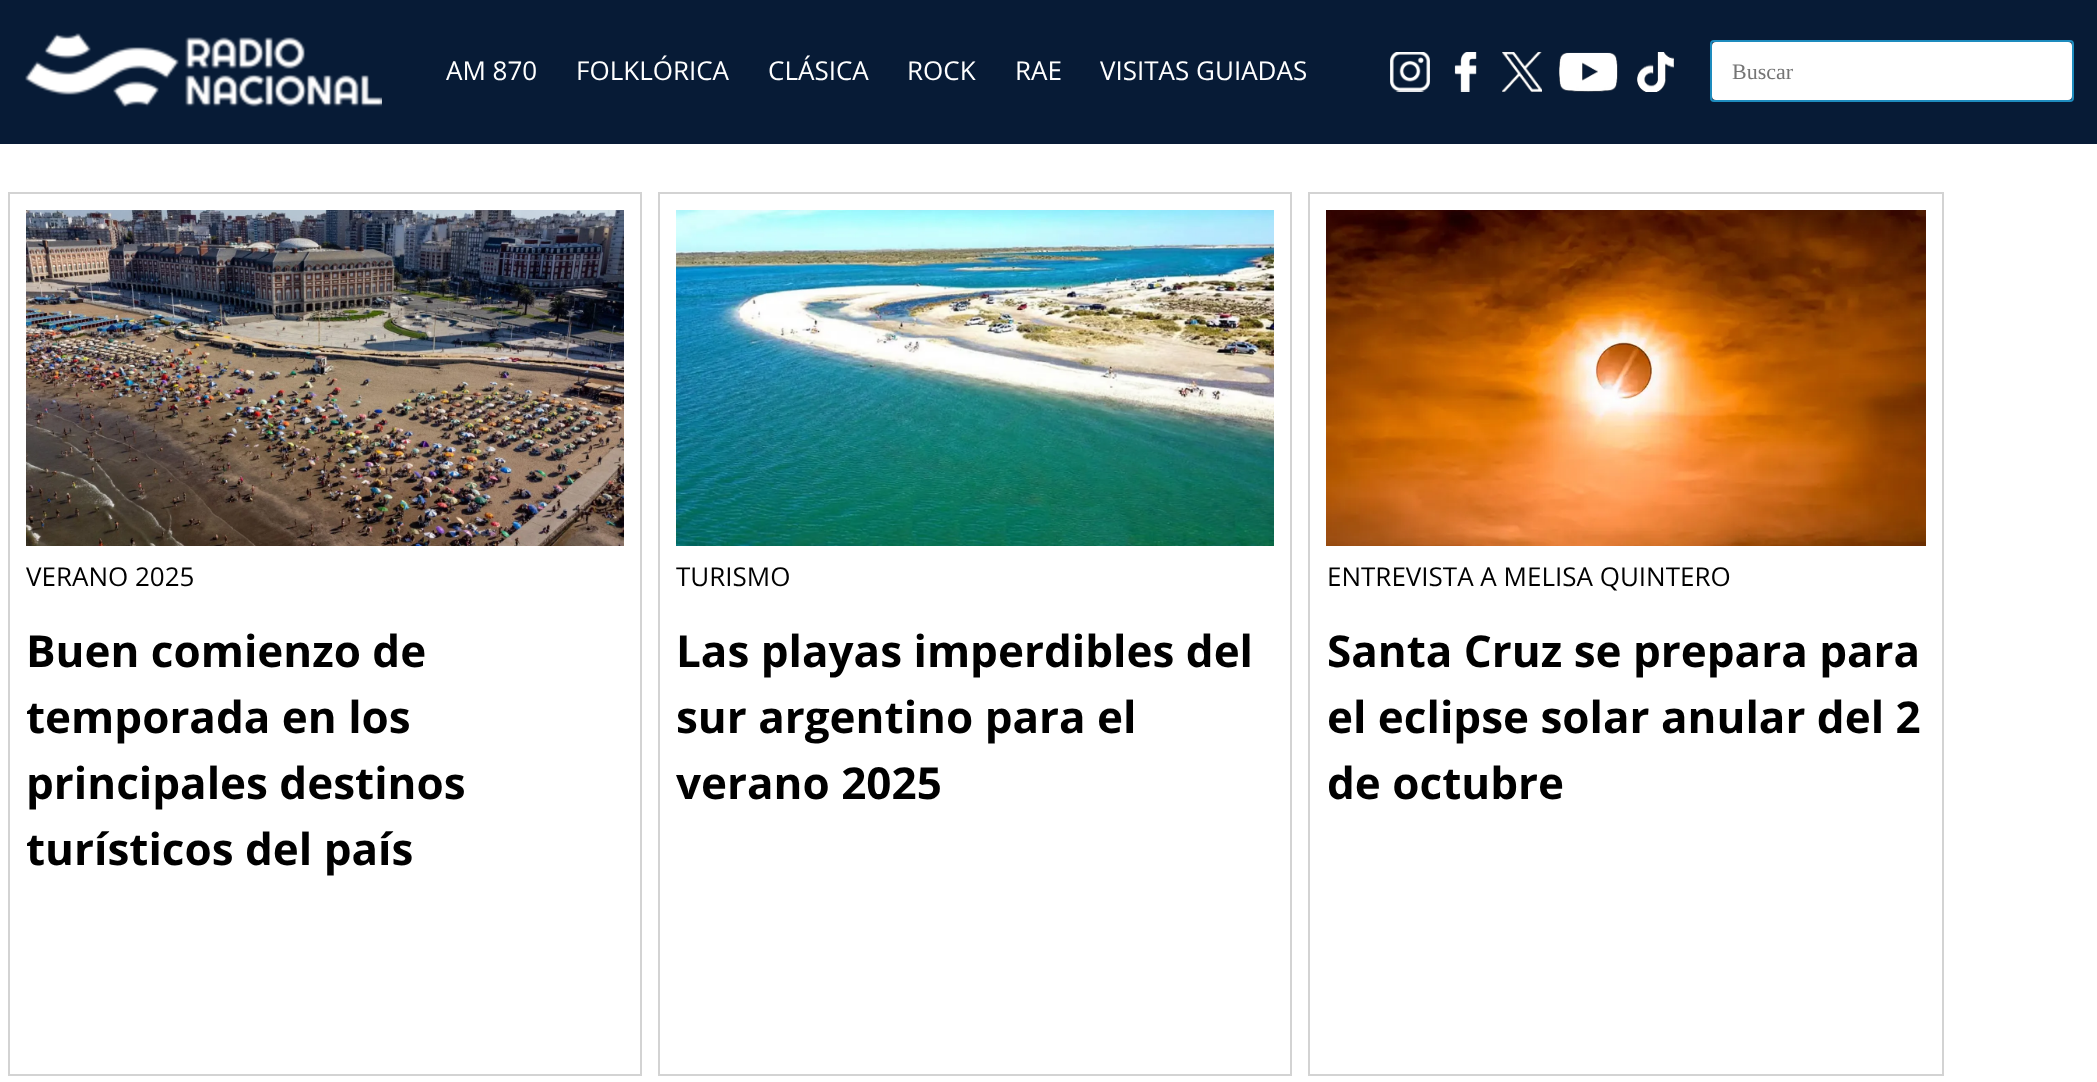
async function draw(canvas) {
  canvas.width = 2097
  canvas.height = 1082
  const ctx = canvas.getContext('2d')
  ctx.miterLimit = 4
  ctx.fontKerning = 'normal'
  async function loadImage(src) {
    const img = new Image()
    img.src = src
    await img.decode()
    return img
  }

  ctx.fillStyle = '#fff'
  ctx.fillRect(0, 0, 2097, 1082)
  ctx.fillStyle = '#071b36'
  ctx.fillRect(0, 0, 2097, 144)
  ctx.drawImage(await loadImage('image0.png'), 25, 33, 357, 74)
  ctx.font = '26px Open Sans'
  ctx.fillStyle = '#fff'
  ctx.fillText('AM 870', 446, 80)
  ctx.fillText('FOLKLÓRICA', 576, 80)
  ctx.fillText('CLÁSICA', 768, 80)
  ctx.fillText('ROCK', 907, 80)
  ctx.fillText('RAE', 1015, 80)
  ctx.fillText('VISITAS GUIADAS', 1100, 80)
  ctx.drawImage(await loadImage('image1.png'), 1390, 52, 40, 40)
  ctx.drawImage(await loadImage('image2.png'), 1454, 52, 23, 40)
  ctx.drawImage(await loadImage('image3.png'), 1502, 52, 40, 40)
  ctx.drawImage(await loadImage('image4.png'), 1559, 52, 59, 40)
  ctx.drawImage(await loadImage('image5.png'), 1637, 52, 37, 40)
  ctx.beginPath()
  ctx.roundRect(1711, 41, 362, 60, 3)
  ctx.strokeStyle = '#1e8cbe'
  ctx.lineWidth = 2
  ctx.stroke()
  ctx.beginPath()
  ctx.roundRect(1712, 42, 360, 58, 4)
  ctx.fill()
  ctx.font = '22px Liberation Serif'
  ctx.fillStyle = '#757575'
  ctx.fillText('Buscar', 1732, 79)
  ctx.strokeStyle = '#d3d3d3'
  ctx.strokeRect(9, 193, 632, 882)
  ctx.drawImage(await loadImage('image6.png'), 26, 210, 598, 336)
  ctx.font = '26px Open Sans'
  ctx.fillStyle = '#000'
  ctx.fillText('VERANO 2025', 26, 586)
  ctx.font = 'bold 44px Open Sans'
  ctx.fillText('Buen comienzo de', 26, 667)
  ctx.fillText('temporada en los', 26, 733)
  ctx.fillText('principales destinos', 26, 799)
  ctx.fillText('turísticos del país', 26, 865)
  ctx.strokeRect(659, 193, 632, 882)
  ctx.drawImage(await loadImage('image7.png'), 676, 210, 598, 336)
  ctx.font = '26px Open Sans'
  ctx.fillText('TURISMO', 676, 586)
  ctx.font = 'bold 44px Open Sans'
  ctx.fillText('Las playas imperdibles del', 676, 667)
  ctx.fillText('sur argentino para el', 676, 733)
  ctx.fillText('verano 2025', 676, 799)
  ctx.strokeRect(1309, 193, 634, 882)
  ctx.drawImage(await loadImage('image8.png'), 1326, 210, 600, 336)
  ctx.font = '26px Open Sans'
  ctx.fillText('ENTREVISTA A MELISA QUINTERO', 1327, 586)
  ctx.font = 'bold 44px Open Sans'
  ctx.fillText('Santa Cruz se prepara para', 1327, 667)
  ctx.fillText('el eclipse solar anular del 2', 1327, 733)
  ctx.fillText('de octubre', 1327, 799)
}

draw(document.querySelector('canvas'))
